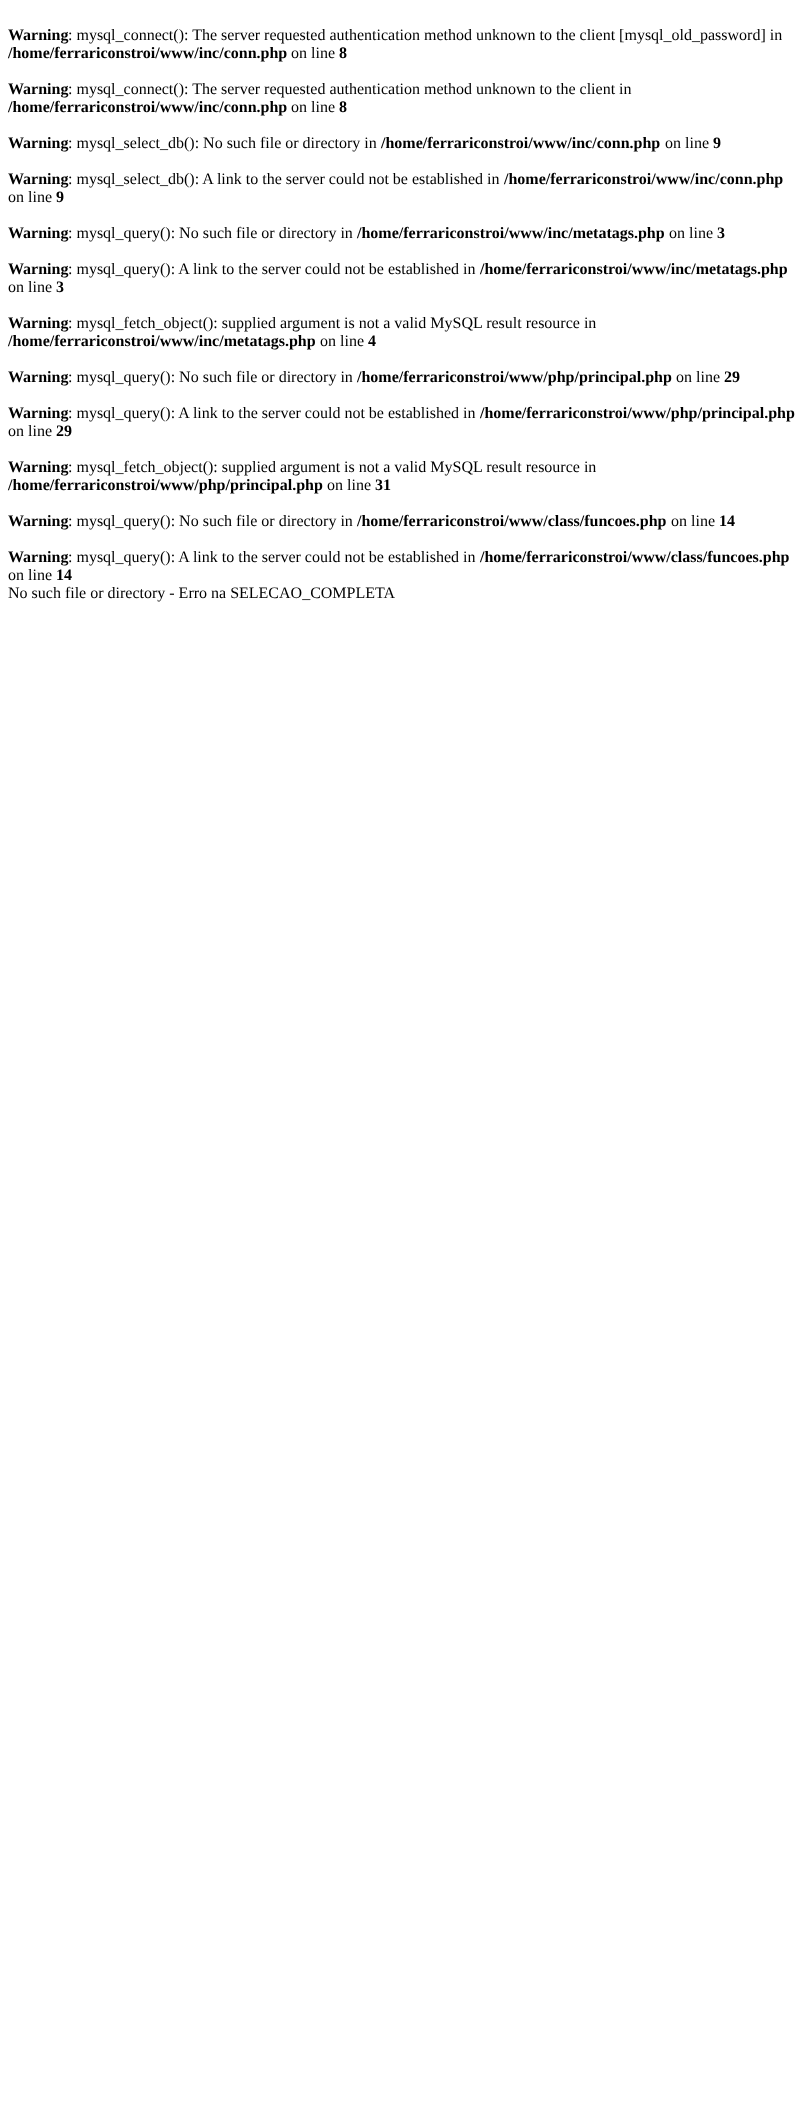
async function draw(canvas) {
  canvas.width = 806
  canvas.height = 2128
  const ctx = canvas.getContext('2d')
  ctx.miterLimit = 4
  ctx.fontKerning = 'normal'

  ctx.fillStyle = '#fff'
  ctx.fillRect(0, 0, 806, 2128)
  ctx.font = 'bold 16px Liberation Serif'
  ctx.fillStyle = '#000'
  ctx.fillText('Warning', 8, 40)
  ctx.font = '16px Liberation Serif'
  ctx.fillText(': mysql_connect(): The server requested authentication method unknown to the client [mysql_old_password] in', 68, 40)
  ctx.font = 'bold 16px Liberation Serif'
  ctx.fillText('/home/ferrariconstroi/www/inc/conn.php', 8, 58)
  ctx.font = '16px Liberation Serif'
  ctx.fillText('on line', 291, 58)
  ctx.font = 'bold 16px Liberation Serif'
  ctx.fillText('8', 339, 58)
  ctx.fillText('Warning', 8, 94)
  ctx.font = '16px Liberation Serif'
  ctx.fillText(': mysql_connect(): The server requested authentication method unknown to the client in', 68, 94)
  ctx.font = 'bold 16px Liberation Serif'
  ctx.fillText('/home/ferrariconstroi/www/inc/conn.php', 8, 112)
  ctx.font = '16px Liberation Serif'
  ctx.fillText('on line', 291, 112)
  ctx.font = 'bold 16px Liberation Serif'
  ctx.fillText('8', 339, 112)
  ctx.fillText('Warning', 8, 148)
  ctx.font = '16px Liberation Serif'
  ctx.fillText(': mysql_select_db(): No such file or directory in', 68, 148)
  ctx.font = 'bold 16px Liberation Serif'
  ctx.fillText('/home/ferrariconstroi/www/inc/conn.php', 381, 148)
  ctx.font = '16px Liberation Serif'
  ctx.fillText('on line', 665, 148)
  ctx.font = 'bold 16px Liberation Serif'
  ctx.fillText('9', 713, 148)
  ctx.fillText('Warning', 8, 184)
  ctx.font = '16px Liberation Serif'
  ctx.fillText(': mysql_select_db(): A link to the server could not be established in', 68, 184)
  ctx.font = 'bold 16px Liberation Serif'
  ctx.fillText('/home/ferrariconstroi/www/inc/conn.php', 504, 184)
  ctx.font = '16px Liberation Serif'
  ctx.fillText('on line', 8, 202)
  ctx.font = 'bold 16px Liberation Serif'
  ctx.fillText('9', 56, 202)
  ctx.fillText('Warning', 8, 238)
  ctx.font = '16px Liberation Serif'
  ctx.fillText(': mysql_query(): No such file or directory in', 68, 238)
  ctx.font = 'bold 16px Liberation Serif'
  ctx.fillText('/home/ferrariconstroi/www/inc/metatags.php', 357, 238)
  ctx.font = '16px Liberation Serif'
  ctx.fillText('on line', 669, 238)
  ctx.font = 'bold 16px Liberation Serif'
  ctx.fillText('3', 717, 238)
  ctx.fillText('Warning', 8, 274)
  ctx.font = '16px Liberation Serif'
  ctx.fillText(': mysql_query(): A link to the server could not be established in', 68, 274)
  ctx.font = 'bold 16px Liberation Serif'
  ctx.fillText('/home/ferrariconstroi/www/inc/metatags.php', 480, 274)
  ctx.font = '16px Liberation Serif'
  ctx.fillText('on line', 8, 292)
  ctx.font = 'bold 16px Liberation Serif'
  ctx.fillText('3', 56, 292)
  ctx.fillText('Warning', 8, 328)
  ctx.font = '16px Liberation Serif'
  ctx.fillText(': mysql_fetch_object(): supplied argument is not a valid MySQL result resource in', 68, 328)
  ctx.font = 'bold 16px Liberation Serif'
  ctx.fillText('/home/ferrariconstroi/www/inc/metatags.php', 8, 346)
  ctx.font = '16px Liberation Serif'
  ctx.fillText('on line', 320, 346)
  ctx.font = 'bold 16px Liberation Serif'
  ctx.fillText('4', 368, 346)
  ctx.fillText('Warning', 8, 382)
  ctx.font = '16px Liberation Serif'
  ctx.fillText(': mysql_query(): No such file or directory in', 68, 382)
  ctx.font = 'bold 16px Liberation Serif'
  ctx.fillText('/home/ferrariconstroi/www/php/principal.php', 357, 382)
  ctx.font = '16px Liberation Serif'
  ctx.fillText('on line', 676, 382)
  ctx.font = 'bold 16px Liberation Serif'
  ctx.fillText('29', 724, 382)
  ctx.fillText('Warning', 8, 418)
  ctx.font = '16px Liberation Serif'
  ctx.fillText(': mysql_query(): A link to the server could not be established in', 68, 418)
  ctx.font = 'bold 16px Liberation Serif'
  ctx.fillText('/home/ferrariconstroi/www/php/principal.php', 480, 418)
  ctx.font = '16px Liberation Serif'
  ctx.fillText('on line', 8, 436)
  ctx.font = 'bold 16px Liberation Serif'
  ctx.fillText('29', 56, 436)
  ctx.fillText('Warning', 8, 472)
  ctx.font = '16px Liberation Serif'
  ctx.fillText(': mysql_fetch_object(): supplied argument is not a valid MySQL result resource in', 68, 472)
  ctx.font = 'bold 16px Liberation Serif'
  ctx.fillText('/home/ferrariconstroi/www/php/principal.php', 8, 490)
  ctx.font = '16px Liberation Serif'
  ctx.fillText('on line', 327, 490)
  ctx.font = 'bold 16px Liberation Serif'
  ctx.fillText('31', 375, 490)
  ctx.fillText('Warning', 8, 526)
  ctx.font = '16px Liberation Serif'
  ctx.fillText(': mysql_query(): No such file or directory in', 68, 526)
  ctx.font = 'bold 16px Liberation Serif'
  ctx.fillText('/home/ferrariconstroi/www/class/funcoes.php', 357, 526)
  ctx.font = '16px Liberation Serif'
  ctx.fillText('on line', 671, 526)
  ctx.font = 'bold 16px Liberation Serif'
  ctx.fillText('14', 719, 526)
  ctx.fillText('Warning', 8, 562)
  ctx.font = '16px Liberation Serif'
  ctx.fillText(': mysql_query(): A link to the server could not be established in', 68, 562)
  ctx.font = 'bold 16px Liberation Serif'
  ctx.fillText('/home/ferrariconstroi/www/class/funcoes.php', 480, 562)
  ctx.font = '16px Liberation Serif'
  ctx.fillText('on line', 8, 580)
  ctx.font = 'bold 16px Liberation Serif'
  ctx.fillText('14', 56, 580)
  ctx.font = '16px Liberation Serif'
  ctx.fillText('No such file or directory - Erro na SELECAO_COMPLETA', 8, 598)
}

draw(document.querySelector('canvas'))
